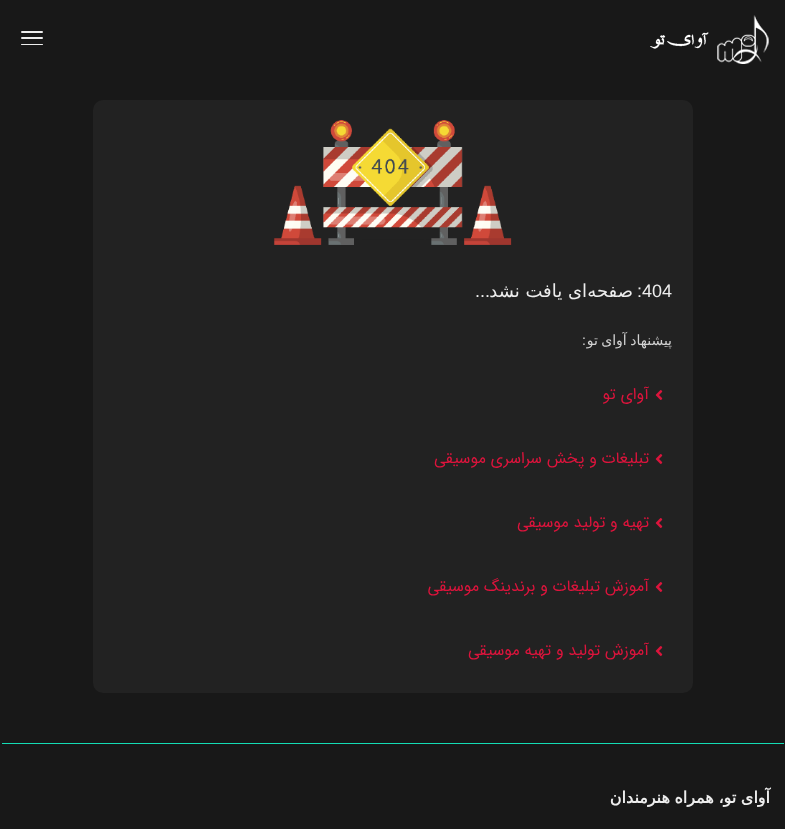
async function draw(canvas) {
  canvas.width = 785
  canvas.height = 829
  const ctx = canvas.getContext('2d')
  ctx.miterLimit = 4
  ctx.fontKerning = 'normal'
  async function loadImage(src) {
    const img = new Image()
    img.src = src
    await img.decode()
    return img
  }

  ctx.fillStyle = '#181818'
  ctx.fillRect(0, 0, 785, 829)
  ctx.drawImage(await loadImage('image0.png'), 650, 15, 119, 49)
  ctx.fillStyle = '#ededed'
  ctx.beginPath()
  ctx.roundRect(21, 31, 22, 2, 1)
  ctx.fill()
  ctx.beginPath()
  ctx.roundRect(21, 37, 22, 2, 1)
  ctx.fill()
  ctx.beginPath()
  ctx.roundRect(21, 44, 22, 1, 0.5)
  ctx.fill()
  ctx.fillStyle = '#222'
  ctx.beginPath()
  ctx.roundRect(93, 100, 600, 593, 10)
  ctx.fill()
  ctx.drawImage(await loadImage('image1.png'), 273, 120, 239, 125)
  ctx.font = '18px Liberation Sans'
  ctx.fillStyle = '#ededed'
  ctx.fillText('404', 642, 297)
  ctx.direction = 'rtl'
  ctx.fillText(':', 642, 297)
  ctx.font = '18px DejaVu Sans'
  ctx.fillText('صفحه', 633, 297)
  ctx.fillText('ای یافت نشد', 587, 297)
  ctx.font = '18px Liberation Sans'
  ctx.fillText('...', 490, 297)
  ctx.font = '14px Liberation Sans'
  ctx.fillStyle = '#d2d2d2'
  ctx.fillText(':', 586, 345)
  ctx.wordSpacing = '-1px'
  ctx.font = '14px DejaVu Sans'
  ctx.fillText('پیشنهاد آوای تو', 672, 345)
  ctx.drawImage(await loadImage('image2.png'), 655, 390, 8, 10)
  ctx.wordSpacing = '0px'
  ctx.font = '16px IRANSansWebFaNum'
  ctx.fillStyle = '#dc143c'
  ctx.fillText('آوای تو', 649, 399)
  ctx.drawImage(await loadImage('image2.png'), 655, 454, 8, 10)
  ctx.fillText('تبلیغات و پخش سراسری موسیقی', 649, 463)
  ctx.drawImage(await loadImage('image2.png'), 655, 518, 8, 10)
  ctx.fillText('تهیه و تولید موسیقی', 649, 527)
  ctx.drawImage(await loadImage('image2.png'), 655, 582, 8, 10)
  ctx.fillText('آموزش تبلیغات و برندینگ موسیقی', 649, 591)
  ctx.drawImage(await loadImage('image2.png'), 655, 646, 8, 10)
  ctx.fillText('آموزش تولید و تهیه موسیقی', 649, 655)
  ctx.fillStyle = '#14dcb4'
  ctx.fillRect(2, 743, 782, 1)
  ctx.wordSpacing = '-0.5px'
  ctx.font = 'bold 16px DejaVu Sans'
  ctx.fillStyle = '#ededed'
  ctx.fillText('آوای تو، همراه هنرمندان', 770, 803)
}

draw(document.querySelector('canvas'))
